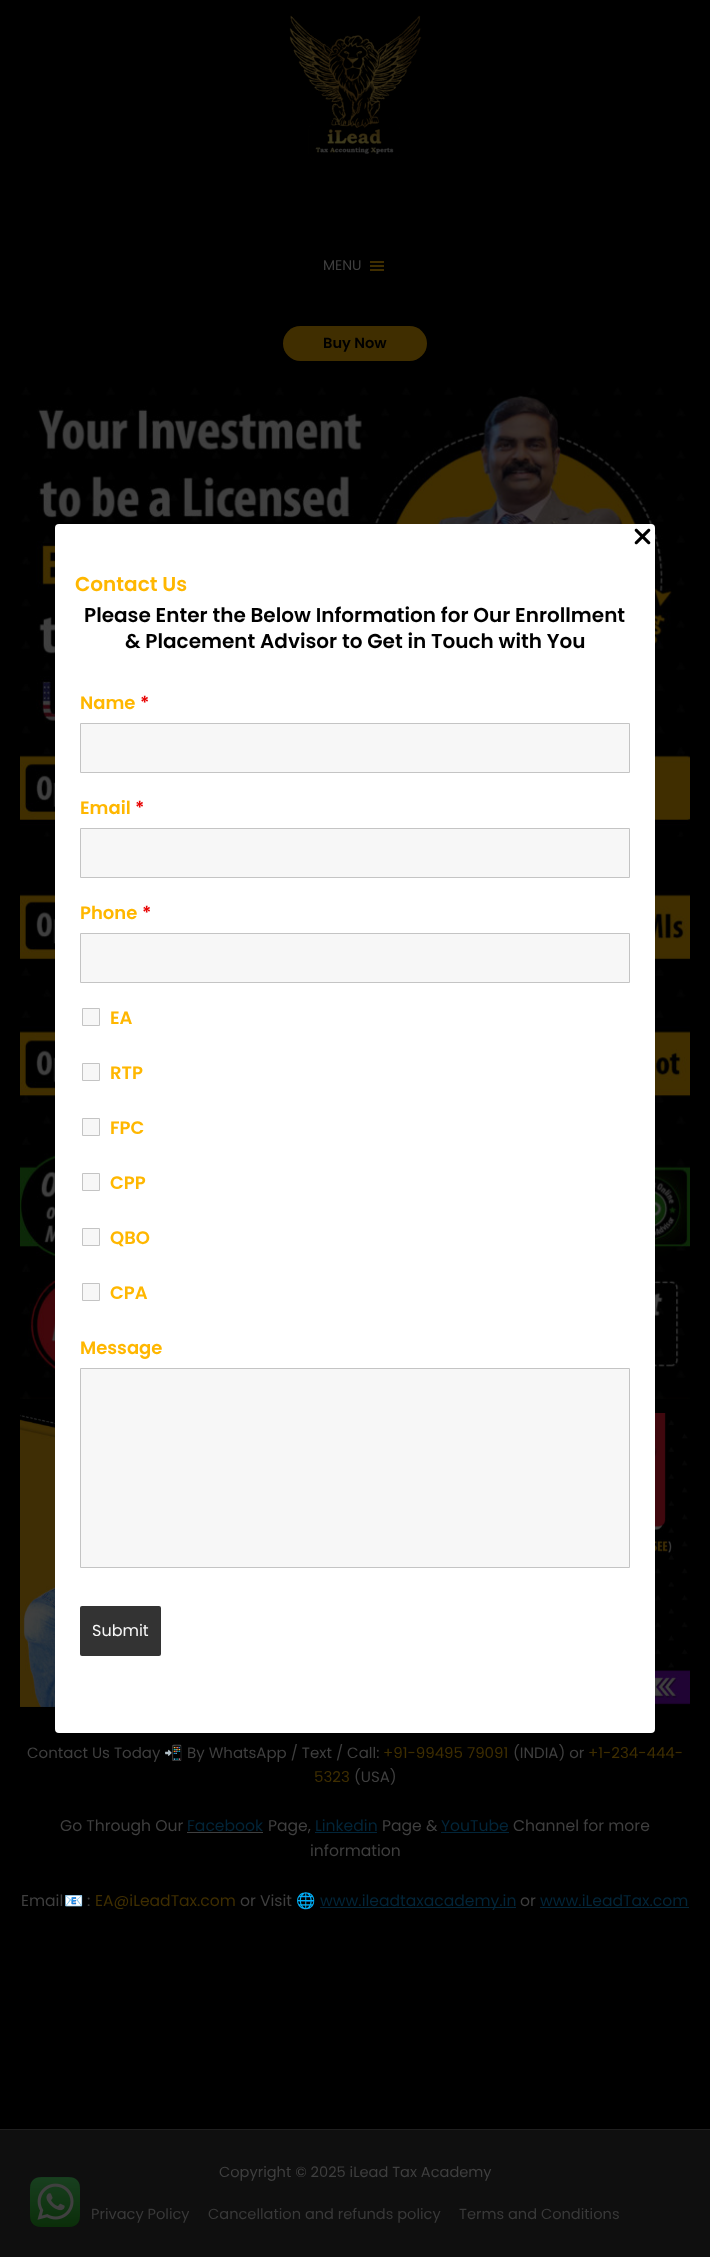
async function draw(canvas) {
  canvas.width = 710
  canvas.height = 2257
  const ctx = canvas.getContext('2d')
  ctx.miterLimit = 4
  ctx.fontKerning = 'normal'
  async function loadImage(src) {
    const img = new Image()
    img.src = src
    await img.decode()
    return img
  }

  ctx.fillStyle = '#000'
  ctx.fillRect(0, 0, 710, 2257)
  ctx.drawImage(await loadImage('image0.png'), 289, 15, 133, 145)
  ctx.font = '14px Poppins'
  ctx.fillStyle = '#3f3f3f'
  ctx.fillText('MENU', 323, 270)
  ctx.drawImage(await loadImage('image1.png'), 370, 261, 14, 10)
  ctx.fillStyle = '#402e00'
  ctx.beginPath()
  ctx.roundRect(283, 326, 144, 35, 17.5)
  ctx.fill()
  ctx.font = '600 14.6px Poppins'
  ctx.fillStyle = '#000'
  ctx.fillText('Buy Now', 323, 348)
  ctx.drawImage(await loadImage('image2.png'), 20, 387, 670, 1012)
  ctx.drawImage(await loadImage('image3.png'), 20, 1413, 670, 294)
  ctx.font = '15px Poppins'
  ctx.fillStyle = '#3f3f3f'
  ctx.fillText('Contact Us Today', 27, 1758)
  ctx.font = '15px Noto Color Emoji'
  ctx.fillText('📲', 164, 1758)
  ctx.font = '15px Poppins'
  ctx.fillText('By WhatsApp / Text / Call:', 187, 1758)
  ctx.fillStyle = '#3f2e00'
  ctx.fillText('+91-99495 79091', 383, 1758)
  ctx.fillStyle = '#3f3f3f'
  ctx.fillText('(INDIA) or', 513, 1758)
  ctx.fillStyle = '#3f2e00'
  ctx.fillText('+1-234-444-', 588, 1758)
  ctx.fillText('5323', 314, 1782)
  ctx.fillStyle = '#3f3f3f'
  ctx.fillText('(USA)', 354, 1782)
  ctx.font = '15.6px Poppins'
  ctx.fillText('Go Through Our', 60, 1831)
  ctx.fillStyle = '#022539'
  ctx.fillText('Facebook', 187, 1831)
  ctx.fillStyle = '#3f3f3f'
  ctx.fillRect(187, 1832, 76, 1)
  ctx.fillText('Page,', 268, 1831)
  ctx.fillStyle = '#022539'
  ctx.fillText('Linkedin', 315, 1831)
  ctx.fillRect(315, 1832, 62, 1)
  ctx.fillStyle = '#3f3f3f'
  ctx.fillText('Page &', 382, 1831)
  ctx.fillStyle = '#022539'
  ctx.fillText('YouTube', 441, 1831)
  ctx.fillRect(441, 1832, 68, 1)
  ctx.fillStyle = '#3f3f3f'
  ctx.fillText('Channel for more', 513, 1831)
  ctx.fillText('information', 310, 1856)
  ctx.fillText('Email', 21, 1906)
  ctx.font = '15.6px Noto Color Emoji'
  ctx.fillText('📧', 64, 1906)
  ctx.font = '15.6px Poppins'
  ctx.fillText(':', 87, 1906)
  ctx.fillStyle = '#3f2e00'
  ctx.fillText('EA@iLeadTax.com', 95, 1906)
  ctx.fillStyle = '#3f3f3f'
  ctx.fillText('or Visit', 240, 1906)
  ctx.font = '15.6px Noto Color Emoji'
  ctx.fillText('🌐', 296, 1906)
  ctx.fillStyle = '#022539'
  ctx.fillRect(320, 1907, 196, 1)
  ctx.font = '15.6px Poppins'
  ctx.fillText('www.ileadtaxacademy.in', 320, 1906)
  ctx.fillStyle = '#3f3f3f'
  ctx.fillText('or', 520, 1906)
  ctx.fillStyle = '#022539'
  ctx.fillText('www.iLeadTax.com', 540, 1906)
  ctx.fillRect(540, 1907, 149, 1)
  ctx.fillStyle = '#1f1f1f'
  ctx.fillRect(0, 2129, 710, 1)
  ctx.fillStyle = '#0f0f0f'
  ctx.fillRect(0, 2130, 710, 127)
  ctx.font = '14.6px Poppins'
  ctx.fillStyle = '#3f3f3f'
  ctx.fillText('Copyright © 2025 iLead Tax Academy', 219, 2177)
  ctx.fillStyle = '#393939'
  ctx.fillText('Privacy Policy', 91, 2219)
  ctx.fillText('Cancellation and refunds policy', 208, 2219)
  ctx.fillText('Terms and Conditions', 459, 2219)
  ctx.fillStyle = '#fff'
  ctx.beginPath()
  ctx.roundRect(55, 524, 600, 1209, 4)
  ctx.fill()
  ctx.drawImage(await loadImage('image4.png'), 634, 528, 17, 17)
  ctx.font = '600 20px Poppins'
  ctx.fillStyle = '#ffb700'
  ctx.fillText('Contact Us', 75, 591)
  ctx.fillStyle = '#000'
  ctx.fillText('Please Enter the Below Information for Our Enrollment', 84, 622)
  ctx.fillText('& Placement Advisor to Get in Touch with You', 125, 648)
  ctx.font = '600 18px Poppins'
  ctx.fillStyle = '#ffb700'
  ctx.fillText('Name', 80, 709)
  ctx.fillStyle = '#e80000'
  ctx.fillText('*', 140, 709)
  ctx.fillStyle = '#f7f7f7'
  ctx.beginPath()
  ctx.rect(80.5, 723.5, 549, 49)
  ctx.fill()
  ctx.strokeStyle = '#c4c4c4'
  ctx.stroke()
  ctx.fillStyle = '#ffb700'
  ctx.fillText('Email', 80, 814)
  ctx.fillStyle = '#e80000'
  ctx.fillText('*', 135, 814)
  ctx.fillStyle = '#f7f7f7'
  ctx.beginPath()
  ctx.rect(80.5, 828.5, 549, 49)
  ctx.fill()
  ctx.stroke()
  ctx.fillStyle = '#ffb700'
  ctx.fillText('Phone', 80, 919)
  ctx.fillStyle = '#e80000'
  ctx.fillText('*', 142, 919)
  ctx.fillStyle = '#f7f7f7'
  ctx.beginPath()
  ctx.rect(80.5, 933.5, 549, 49)
  ctx.fill()
  ctx.stroke()
  ctx.beginPath()
  ctx.rect(82.5, 1008.5, 17, 17)
  ctx.fill()
  ctx.stroke()
  ctx.fillStyle = '#ffb700'
  ctx.fillText('EA', 110, 1024)
  ctx.fillStyle = '#f7f7f7'
  ctx.beginPath()
  ctx.rect(82.5, 1063.5, 17, 17)
  ctx.fill()
  ctx.stroke()
  ctx.fillStyle = '#ffb700'
  ctx.fillText('RTP', 110, 1079)
  ctx.fillStyle = '#f7f7f7'
  ctx.beginPath()
  ctx.rect(82.5, 1118.5, 17, 17)
  ctx.fill()
  ctx.stroke()
  ctx.fillStyle = '#ffb700'
  ctx.fillText('FPC', 110, 1134)
  ctx.fillStyle = '#f7f7f7'
  ctx.beginPath()
  ctx.rect(82.5, 1173.5, 17, 17)
  ctx.fill()
  ctx.stroke()
  ctx.fillStyle = '#ffb700'
  ctx.fillText('CPP', 110, 1189)
  ctx.fillStyle = '#f7f7f7'
  ctx.beginPath()
  ctx.rect(82.5, 1228.5, 17, 17)
  ctx.fill()
  ctx.stroke()
  ctx.fillStyle = '#ffb700'
  ctx.fillText('QBO', 110, 1244)
  ctx.fillStyle = '#f7f7f7'
  ctx.beginPath()
  ctx.rect(82.5, 1283.5, 17, 17)
  ctx.fill()
  ctx.stroke()
  ctx.fillStyle = '#ffb700'
  ctx.fillText('CPA', 110, 1299)
  ctx.fillText('Message', 80, 1354)
  ctx.fillStyle = '#f7f7f7'
  ctx.beginPath()
  ctx.rect(80.5, 1368.5, 549, 199)
  ctx.fill()
  ctx.stroke()
  ctx.fillStyle = '#333'
  ctx.beginPath()
  ctx.roundRect(80, 1606, 81, 50, 2)
  ctx.fill()
  ctx.font = '16px Poppins'
  ctx.fillStyle = '#f7f7f7'
  ctx.fillText('Submit', 92, 1636)
  ctx.drawImage(await loadImage('image5.png'), 30, 2177, 50, 50)
}

draw(document.querySelector('canvas'))
